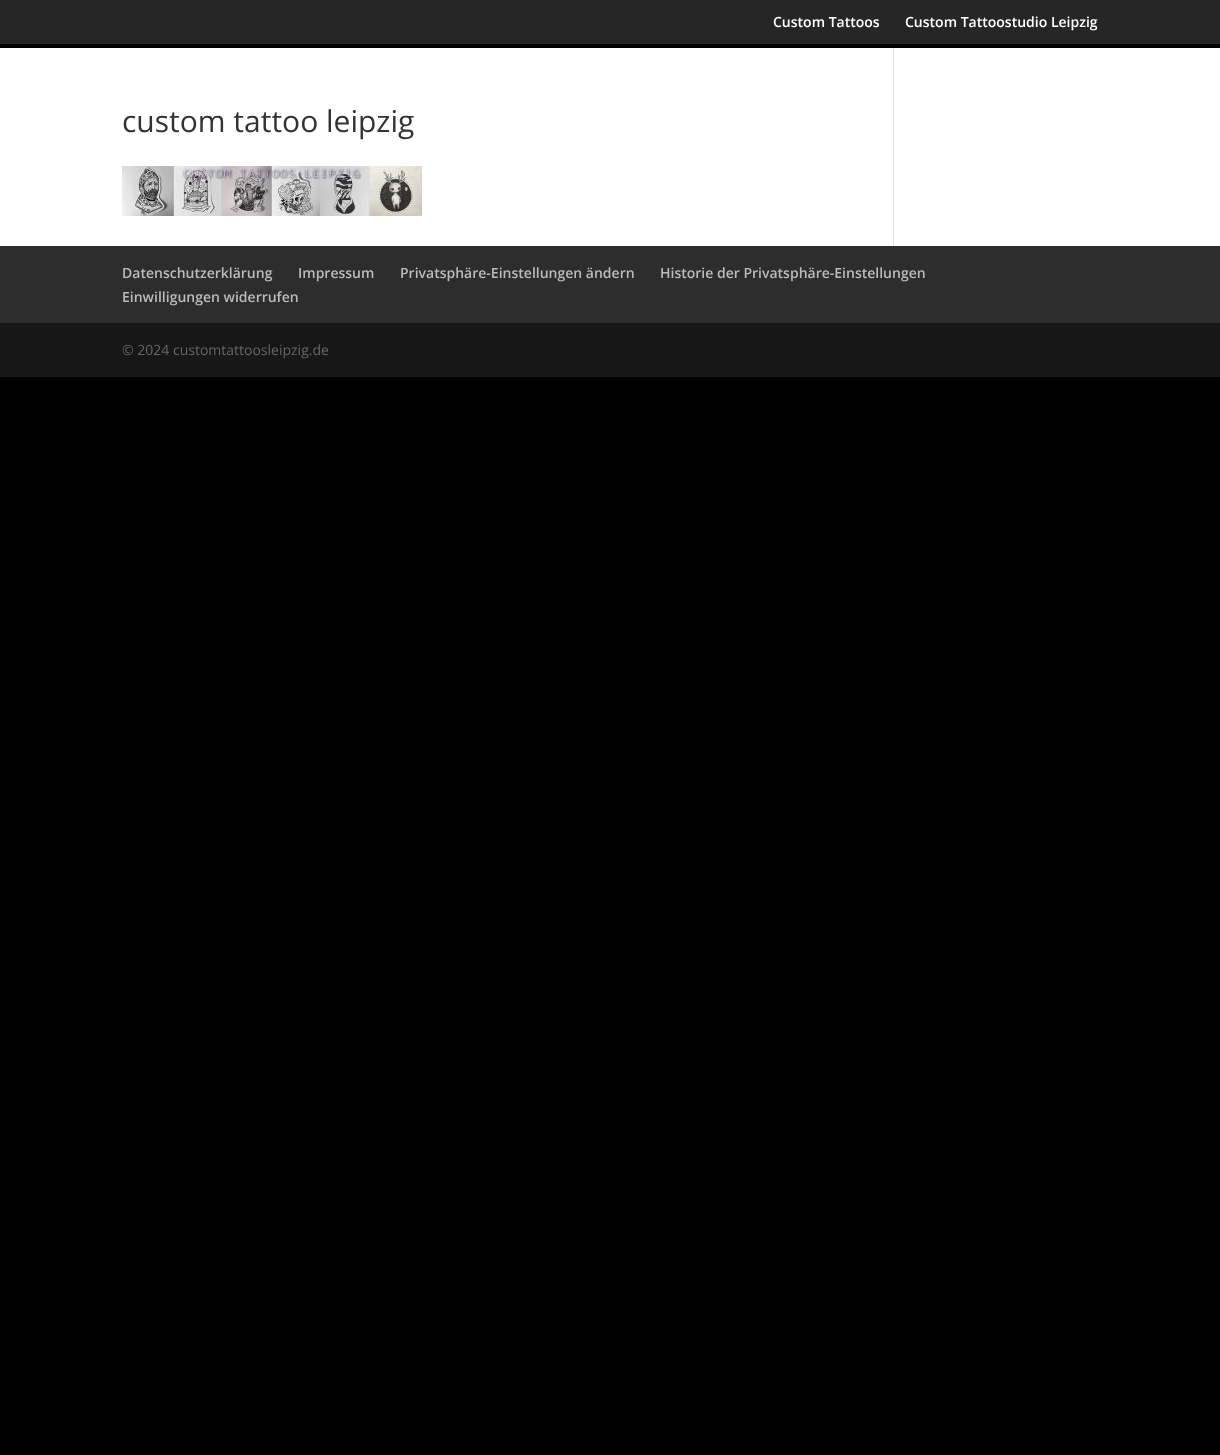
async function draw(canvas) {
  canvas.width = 1220
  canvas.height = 1455
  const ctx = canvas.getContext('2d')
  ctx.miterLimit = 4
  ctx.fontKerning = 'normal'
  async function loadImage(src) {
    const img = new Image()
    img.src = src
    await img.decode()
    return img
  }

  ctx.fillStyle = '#000'
  ctx.fillRect(0, 0, 1220, 1455)
  ctx.fillStyle = '#262626'
  ctx.fillRect(0, 0, 1220, 44)
  ctx.font = '600 14px Open Sans'
  ctx.fillStyle = '#fff'
  ctx.fillText('Custom Tattoos', 773, 27)
  ctx.fillText('Custom Tattoostudio Leipzig', 905, 27)
  ctx.fillRect(0, 48, 1220, 198)
  ctx.font = '30px Open Sans'
  ctx.fillStyle = '#333'
  ctx.fillText('custom tattoo leipzig', 122, 132)
  ctx.drawImage(await loadImage('image0.png'), 122, 166, 300, 50)
  ctx.fillStyle = '#e2e2e2'
  ctx.fillRect(893, 48, 1, 198)
  ctx.fillStyle = '#2d2d2d'
  ctx.fillRect(0, 246, 1220, 77)
  ctx.font = '600 14px Open Sans'
  ctx.fillStyle = '#bbb'
  ctx.fillText('Datenschutzerklärung', 122, 278)
  ctx.fillText('Impressum', 298, 278)
  ctx.fillText('Privatsphäre-Einstellungen ändern', 400, 278)
  ctx.fillText('Historie der Privatsphäre-Einstellungen', 660, 278)
  ctx.fillText('Einwilligungen widerrufen', 122, 302)
  ctx.fillStyle = '#171717'
  ctx.fillRect(0, 323, 1220, 54)
  ctx.font = '14px Open Sans'
  ctx.fillStyle = '#666'
  ctx.fillText('© 2024 customtattoosleipzig.de', 122, 355)
}

draw(document.querySelector('canvas'))
